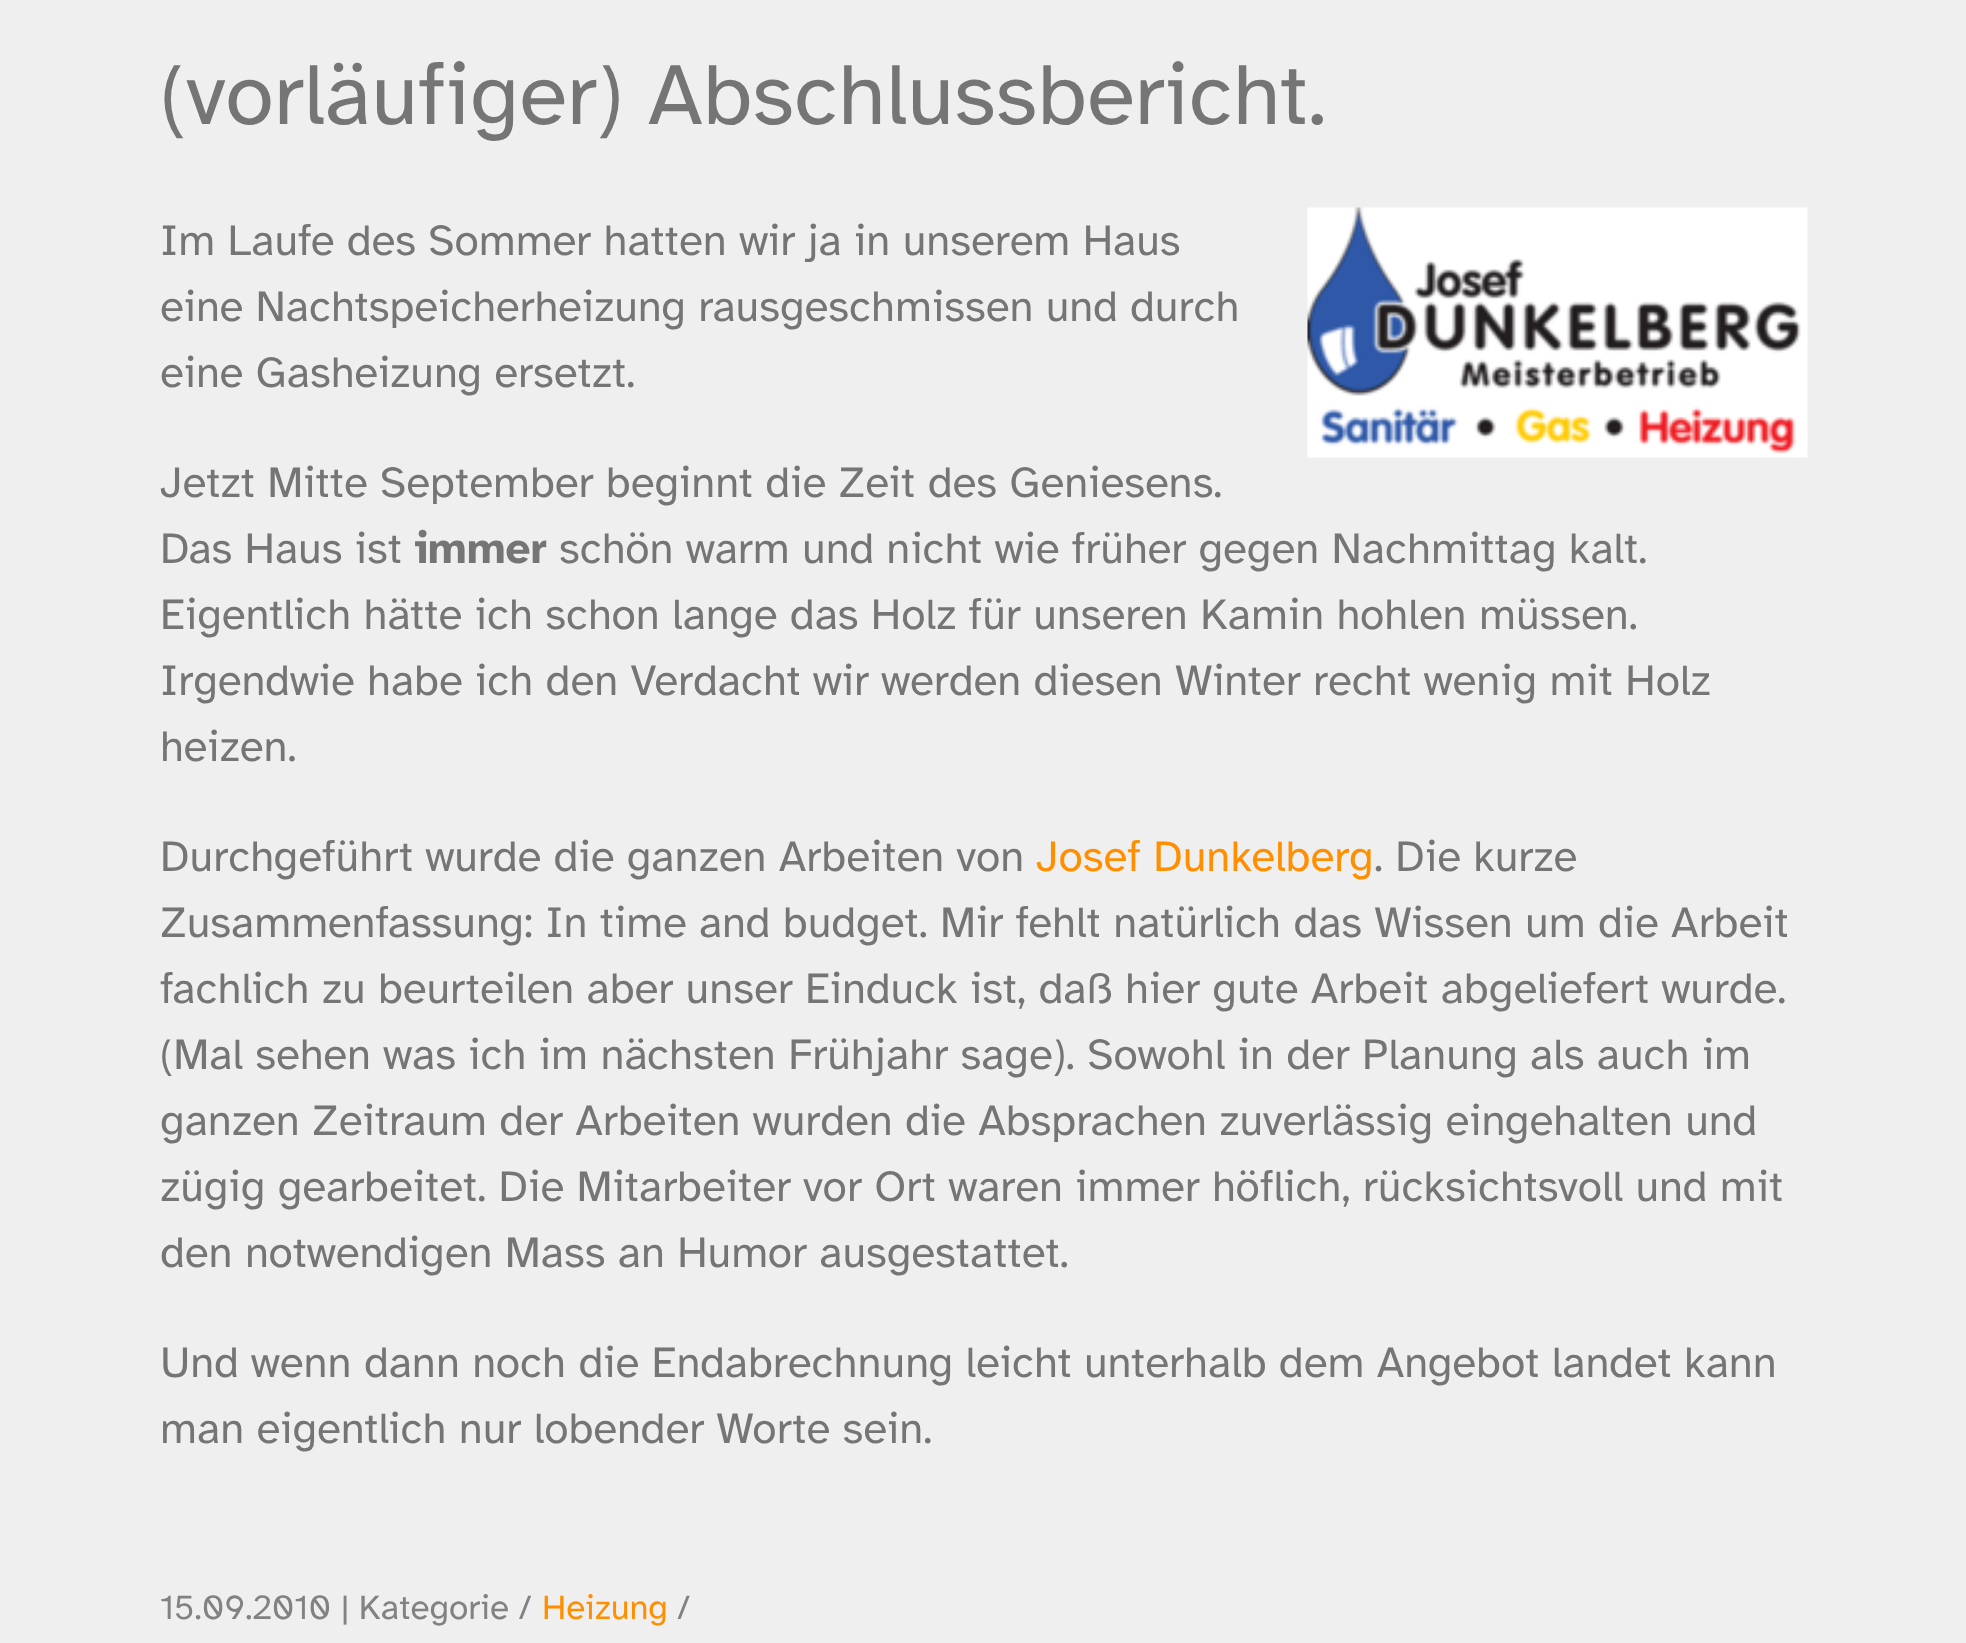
async function draw(canvas) {
  canvas.width = 1966
  canvas.height = 1643
  const ctx = canvas.getContext('2d')
  ctx.miterLimit = 4
  ctx.fontKerning = 'normal'
  async function loadImage(src) {
    const img = new Image()
    img.src = src
    await img.decode()
    return img
  }

  ctx.fillStyle = '#efefef'
  ctx.fillRect(0, 0, 1966, 1643)
  ctx.font = '88px Atkinson Hyperlegible'
  ctx.fillStyle = '#757575'
  ctx.fillText('(vorläufiger) Abschlussbericht.', 160, 124)
  ctx.font = '44px Atkinson Hyperlegible'
  ctx.fillText('Im Laufe des Sommer hatten wir ja in unserem Haus', 160, 255)
  ctx.drawImage(await loadImage('image0.png'), 1307, 207, 501, 251)
  ctx.fillText('eine Nachtspeicherheizung rausgeschmissen und durch', 160, 321)
  ctx.fillText('eine Gasheizung ersetzt.', 160, 387)
  ctx.fillText('Jetzt Mitte September beginnt die Zeit des Geniesens.', 160, 497)
  ctx.fillText('Das Haus ist', 160, 563)
  ctx.font = 'bold 44px Atkinson Hyperlegible'
  ctx.fillText('immer', 414, 563)
  ctx.font = '44px Atkinson Hyperlegible'
  ctx.fillText('schön warm und nicht wie früher gegen Nachmittag kalt.', 559, 563)
  ctx.fillText('Eigentlich hätte ich schon lange das Holz für unseren Kamin hohlen müssen.', 160, 629)
  ctx.fillText('Irgendwie habe ich den Verdacht wir werden diesen Winter recht wenig mit Holz', 160, 695)
  ctx.fillText('heizen.', 160, 761)
  ctx.fillText('Durchgeführt wurde die ganzen Arbeiten von', 160, 871)
  ctx.fillStyle = '#ff8f00'
  ctx.fillText('Josef Dunkelberg', 1036, 871)
  ctx.fillStyle = '#757575'
  ctx.fillText('. Die kurze', 1374, 871)
  ctx.fillText('Zusammenfassung: In time and budget. Mir fehlt natürlich das Wissen um die Arbeit', 160, 937)
  ctx.fillText('fachlich zu beurteilen aber unser Einduck ist, daß hier gute Arbeit abgeliefert wurde.', 160, 1003)
  ctx.fillText('(Mal sehen was ich im nächsten Frühjahr sage). Sowohl in der Planung als auch im', 160, 1069)
  ctx.fillText('ganzen Zeitraum der Arbeiten wurden die Absprachen zuverlässig eingehalten und', 160, 1135)
  ctx.fillText('zügig gearbeitet. Die Mitarbeiter vor Ort waren immer höflich, rücksichtsvoll und mit', 160, 1201)
  ctx.fillText('den notwendigen Mass an Humor ausgestattet.', 160, 1267)
  ctx.fillText('Und wenn dann noch die Endabrechnung leicht unterhalb dem Angebot landet kann', 160, 1377)
  ctx.fillText('man eigentlich nur lobender Worte sein.', 160, 1443)
  ctx.font = '35px Atkinson Hyperlegible'
  ctx.fillStyle = '#828282'
  ctx.fillText('15.09.2010 | Kategorie /', 160, 1619)
  ctx.fillStyle = '#ff8f00'
  ctx.fillText('Heizung', 542, 1619)
  ctx.fillStyle = '#828282'
  ctx.fillText('/', 677, 1619)
}

draw(document.querySelector('canvas'))
